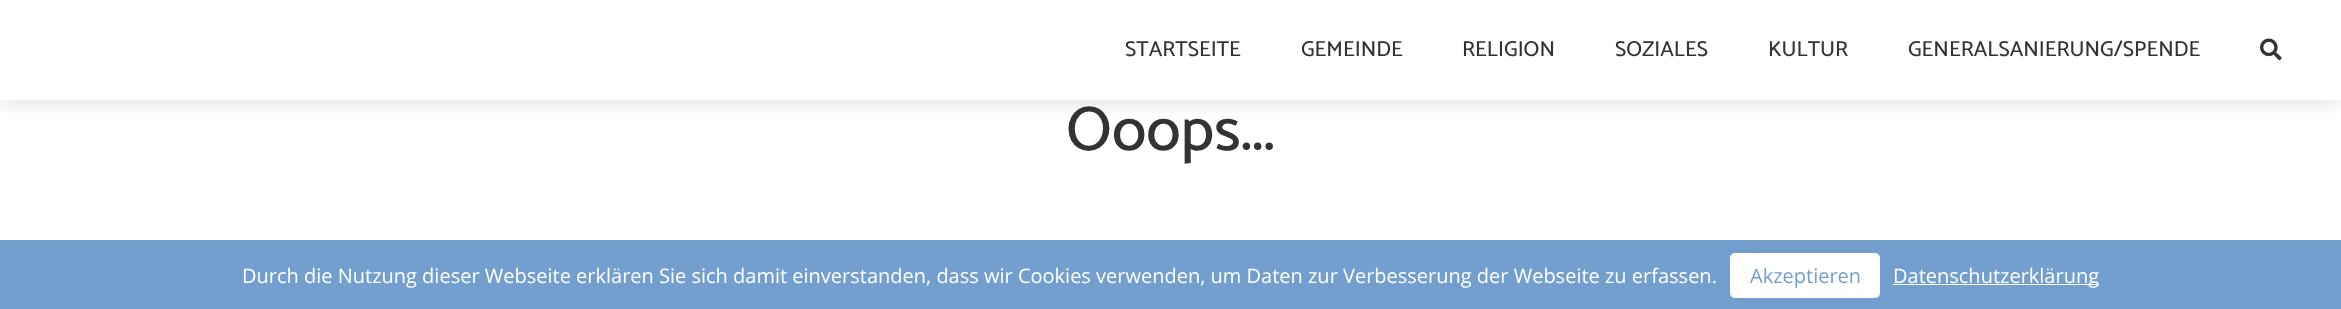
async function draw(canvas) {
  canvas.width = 2341
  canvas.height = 309
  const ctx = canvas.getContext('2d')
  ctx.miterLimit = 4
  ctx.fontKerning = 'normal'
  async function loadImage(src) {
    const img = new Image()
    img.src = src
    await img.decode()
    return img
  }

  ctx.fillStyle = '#fff'
  ctx.fillRect(0, 0, 2341, 309)
  ctx.save()
  ctx.beginPath()
  ctx.rect(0, 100, 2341, 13)
  ctx.clip()
  ctx.fillStyle = '#0000001a'
  ctx.filter = 'blur(10px)'
  ctx.beginPath()
  ctx.rect(0, 5, 2341, 100)
  ctx.fill()
  ctx.filter = 'none'
  ctx.restore()
  ctx.font = '500 21.7px Catamaran'
  ctx.fillStyle = '#333'
  ctx.fillText('STARTSEITE', 1125, 56)
  ctx.fillText('GEMEINDE', 1301, 56)
  ctx.fillText('RELIGION', 1462, 56)
  ctx.fillText('SOZIALES', 1615, 56)
  ctx.fillText('KULTUR', 1768, 56)
  ctx.fillText('GENERALSANIERUNG/SPENDE', 1908, 56)
  ctx.drawImage(await loadImage('image0.png'), 2260, 38, 22, 23)
  ctx.font = '500 63px Catamaran'
  ctx.fillText('Ooops...', 1066, 150)
  ctx.fillStyle = '#739fcf'
  ctx.fillRect(0, 240, 2341, 69)
  ctx.font = '20px Open Sans'
  ctx.fillStyle = '#fff'
  ctx.fillText('Durch die Nutzung dieser Webseite erklären Sie sich damit einverstanden, dass wir Cookies verwenden, um Daten zur Verbesserung der Webseite zu erfassen.', 242, 283)
  ctx.beginPath()
  ctx.roundRect(1730, 253, 150, 45, 5)
  ctx.fill()
  ctx.fillStyle = '#739fcf'
  ctx.fillText('Akzeptieren', 1750, 283)
  ctx.fillStyle = '#fff'
  ctx.fillRect(1893, 284, 206, 1)
  ctx.fillText('Datenschutzerklärung', 1893, 283)
}

draw(document.querySelector('canvas'))
